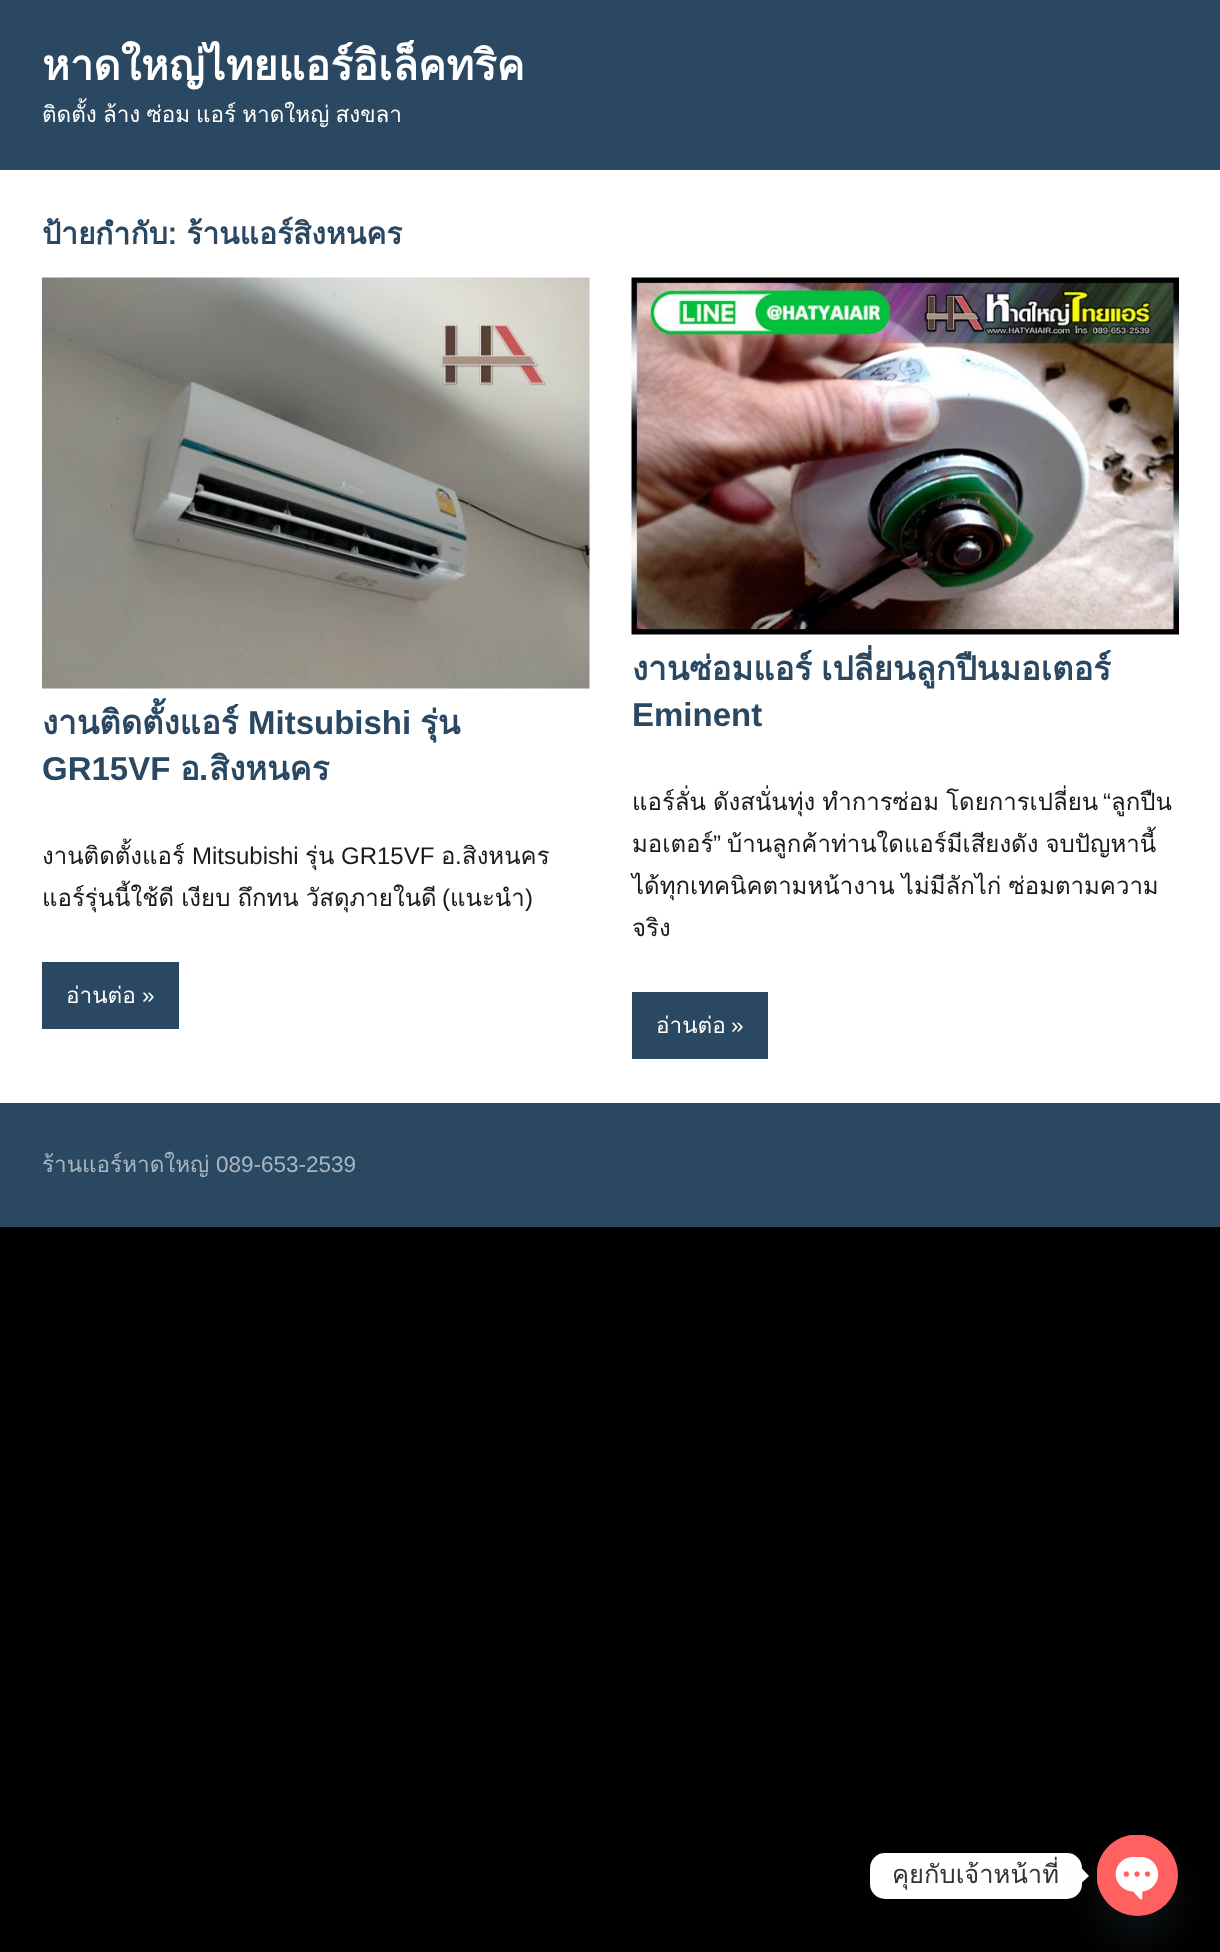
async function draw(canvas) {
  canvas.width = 1220
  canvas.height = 1952
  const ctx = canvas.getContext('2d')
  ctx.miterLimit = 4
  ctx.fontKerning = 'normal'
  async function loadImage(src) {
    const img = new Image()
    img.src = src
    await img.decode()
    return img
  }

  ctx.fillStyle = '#000'
  ctx.fillRect(0, 0, 1220, 1952)
  ctx.fillStyle = '#2a4861'
  ctx.fillRect(0, 0, 1220, 170)
  ctx.font = 'bold 42px Loma'
  ctx.fillStyle = '#fff'
  ctx.fillText('หาดใหญ่ไทยแอร์อิเล็คทริค', 42, 80)
  ctx.wordSpacing = '-1.5px'
  ctx.font = '22.5px Loma'
  ctx.fillText('ติดตั้ง ล้าง ซ่อม แอร์ หาดใหญ่ สงขลา', 42, 122)
  ctx.fillRect(0, 170, 1220, 933)
  ctx.wordSpacing = '0px'
  ctx.font = 'bold 30px Loma'
  ctx.fillStyle = '#2a4861'
  ctx.fillText('ป้ายกำกับ: ร้านแอร์สิงหนคร', 42, 244)
  ctx.drawImage(await loadImage('image0.png'), 42, 277, 548, 412)
  ctx.font = 'bold 33px Loma'
  ctx.fillText('งานติดตั้งแอร์', 42, 734)
  ctx.font = 'bold 33px Liberation Sans'
  ctx.fillText('Mitsubishi', 248, 734)
  ctx.font = 'bold 33px Loma'
  ctx.fillText('รุ่น', 420, 734)
  ctx.font = 'bold 33px Liberation Sans'
  ctx.fillText('GR15VF', 42, 780)
  ctx.font = 'bold 33px Loma'
  ctx.fillText('อ', 180, 780)
  ctx.font = 'bold 33px Liberation Sans'
  ctx.fillText('.', 199, 780)
  ctx.font = 'bold 33px Loma'
  ctx.fillText('สิงหนคร', 209, 780)
  ctx.font = '24px Loma'
  ctx.fillStyle = '#1a1a1a'
  ctx.fillText('งานติดตั้งแอร์', 42, 864)
  ctx.font = '24px Liberation Sans'
  ctx.fillText('Mitsubishi', 192, 864)
  ctx.font = '24px Loma'
  ctx.fillText('รุ่น', 305, 864)
  ctx.font = '24px Liberation Sans'
  ctx.fillText('GR15VF', 341, 864)
  ctx.font = '24px Loma'
  ctx.fillText('อ', 441, 864)
  ctx.font = '24px Liberation Sans'
  ctx.fillText('.', 455, 864)
  ctx.font = '24px Loma'
  ctx.fillText('สิงหนคร', 462, 864)
  ctx.wordSpacing = '-1px'
  ctx.fillText('แอร์รุ่นนี้ใช้ดี เงียบ ถึกทน วัสดุภายในดี', 42, 906)
  ctx.wordSpacing = '0px'
  ctx.font = '24px Liberation Sans'
  ctx.fillText('(', 442, 906)
  ctx.font = '24px Loma'
  ctx.fillText('แนะนำ', 450, 906)
  ctx.font = '24px Liberation Sans'
  ctx.fillText(')', 525, 906)
  ctx.fillStyle = '#2a4861'
  ctx.fillRect(42, 962, 137, 67)
  ctx.font = '22.5px Loma'
  ctx.fillStyle = '#fff'
  ctx.fillText('อ่านต่อ', 66, 1003)
  ctx.font = '22.5px Liberation Sans'
  ctx.fillText('»', 142, 1003)
  ctx.drawImage(await loadImage('image1.png'), 631, 277, 548, 358)
  ctx.wordSpacing = '-2px'
  ctx.font = 'bold 33px Loma'
  ctx.fillStyle = '#2a4861'
  ctx.fillText('งานซ่อมแอร์ เปลี่ยนลูกปืนมอเตอร์', 632, 680)
  ctx.wordSpacing = '0px'
  ctx.font = 'bold 33px Liberation Sans'
  ctx.fillText('Eminent', 632, 726)
  ctx.wordSpacing = '-1px'
  ctx.font = '24px Loma'
  ctx.fillStyle = '#1a1a1a'
  ctx.fillText('แอร์ลั่น ดังสนั่นทุ่ง ทำการซ่อม โดยการเปลี่ยน', 632, 810)
  ctx.wordSpacing = '0px'
  ctx.font = '24px Liberation Sans'
  ctx.fillText('“', 1103, 810)
  ctx.font = '24px Loma'
  ctx.fillText('ลูกปืน', 1111, 810)
  ctx.fillText('มอเตอร์', 632, 852)
  ctx.font = '24px Liberation Sans'
  ctx.fillText('”', 713, 852)
  ctx.wordSpacing = '-1px'
  ctx.font = '24px Loma'
  ctx.fillText('บ้านลูกค้าท่านใดแอร์มีเสียงดัง จบปัญหานี้', 727, 852)
  ctx.fillText('ได้ทุกเทคนิคตามหน้างาน ไม่มีลักไก่ ซ่อมตามความ', 632, 894)
  ctx.wordSpacing = '0px'
  ctx.fillText('จริง', 632, 936)
  ctx.fillStyle = '#2a4861'
  ctx.fillRect(632, 992, 136, 67)
  ctx.font = '22.5px Loma'
  ctx.fillStyle = '#fff'
  ctx.fillText('อ่านต่อ', 656, 1033)
  ctx.font = '22.5px Liberation Sans'
  ctx.fillText('»', 731, 1033)
  ctx.fillStyle = '#2a4861'
  ctx.fillRect(0, 1103, 1220, 124)
  ctx.font = '22.5px Loma'
  ctx.fillStyle = '#aab6c0'
  ctx.fillText('ร้านแอร์หาดใหญ่', 42, 1172)
  ctx.font = '22.5px Liberation Sans'
  ctx.fillText('089-653-2539', 216, 1172)
  ctx.fillStyle = '#fff'
  ctx.beginPath()
  ctx.roundRect(870, 1853, 212, 46, 15)
  ctx.fill()
  ctx.font = '25.5px Loma'
  ctx.fillStyle = '#333'
  ctx.fillText('คุยกับเจ้าหน้าที่', 892, 1883)
  ctx.fillStyle = '#fff'
  ctx.beginPath()
  ctx.moveTo(1081.5, 1883)
  ctx.lineTo(1081.5, 1868)
  ctx.lineTo(1089, 1876)
  ctx.closePath()
  ctx.fill()
  ctx.fillStyle = '#49687e29'
  ctx.filter = 'blur(18px)'
  ctx.beginPath()
  ctx.roundRect(1097, 1859, 81, 81, 40.5)
  ctx.fill()
  ctx.filter = 'none'
  ctx.fillStyle = '#ff6060'
  ctx.beginPath()
  ctx.arc(1137.5, 1875.5, 40.5, 0, 2 * Math.PI)
  ctx.fill()
  ctx.drawImage(await loadImage('image2.png'), 1097, 1835, 81, 81)
}

draw(document.querySelector('canvas'))
